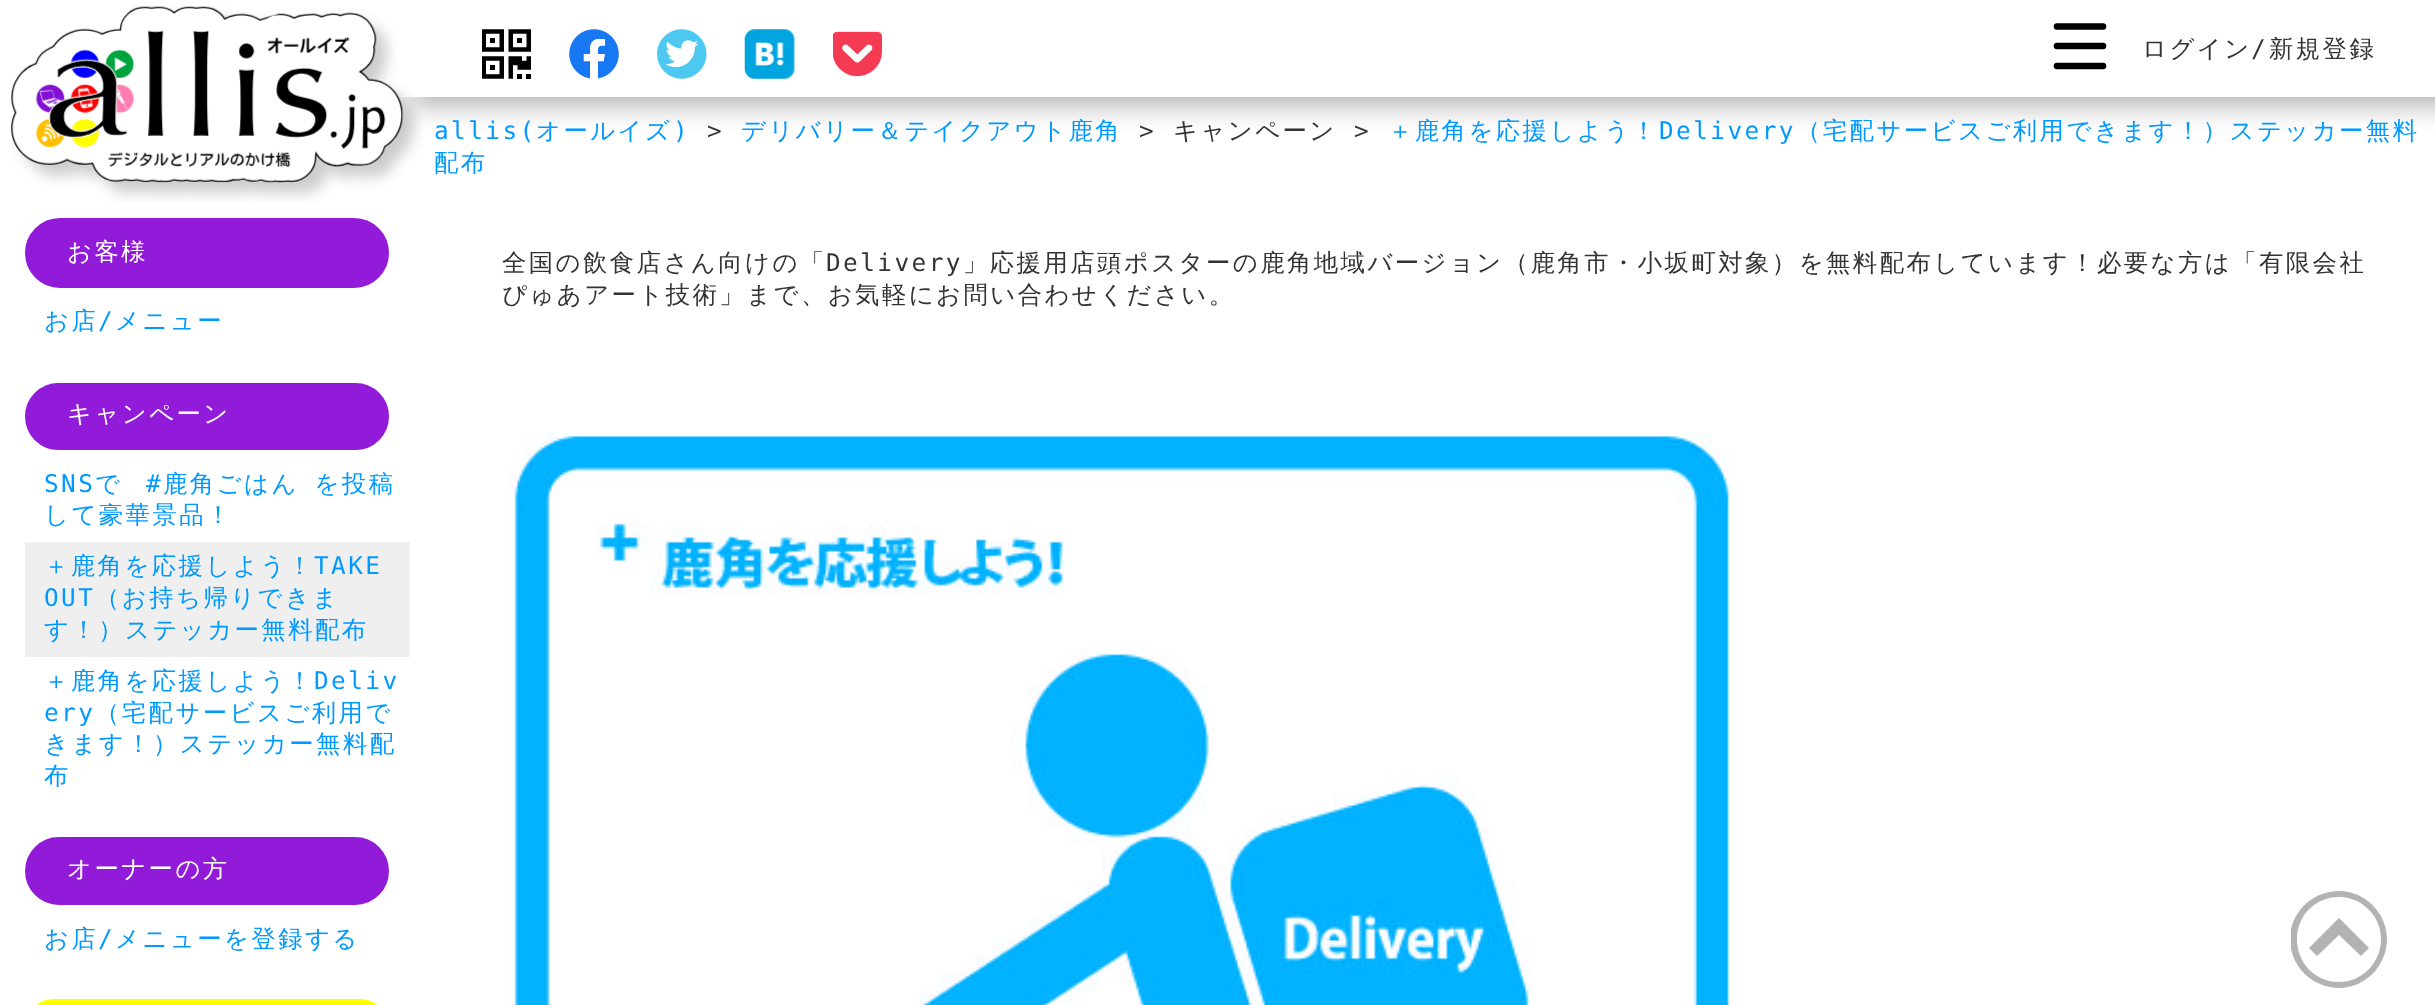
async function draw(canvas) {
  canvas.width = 2435
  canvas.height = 1005
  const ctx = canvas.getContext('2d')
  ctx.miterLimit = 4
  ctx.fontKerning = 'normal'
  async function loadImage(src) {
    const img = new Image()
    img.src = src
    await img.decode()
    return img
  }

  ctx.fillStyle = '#fff'
  ctx.fillRect(0, 0, 2435, 1005)
  ctx.drawImage(await loadImage('image5.png'), 11, 6, 412, 197)
  ctx.save()
  ctx.beginPath()
  ctx.moveTo(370, 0)
  ctx.lineTo(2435, 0)
  ctx.lineTo(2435, 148)
  ctx.lineTo(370, 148)
  ctx.closePath()
  ctx.moveTo(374, 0)
  ctx.lineTo(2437, 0)
  ctx.lineTo(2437, 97)
  ctx.lineTo(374, 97)
  ctx.closePath()
  ctx.clip('evenodd')
  ctx.fillStyle = '#0000004d'
  ctx.filter = 'blur(13.5px)'
  ctx.beginPath()
  ctx.rect(412, 9, 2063, 97)
  ctx.fill()
  ctx.filter = 'none'
  ctx.restore()
  ctx.drawImage(await loadImage('image0.png'), 482, 29, 49, 50)
  ctx.drawImage(await loadImage('image1.png'), 569, 29, 50, 50)
  ctx.drawImage(await loadImage('image2.png'), 657, 29, 50, 50)
  ctx.drawImage(await loadImage('image3.png'), 744, 29, 51, 50)
  ctx.drawImage(await loadImage('image4.png'), 833, 31, 49, 46)
  ctx.beginPath()
  ctx.moveTo(2057, 26.5)
  ctx.lineTo(2103, 26.5)
  ctx.moveTo(2057, 46)
  ctx.lineTo(2103, 46)
  ctx.moveTo(2057, 66)
  ctx.lineTo(2103, 66)
  ctx.strokeStyle = '#000'
  ctx.lineWidth = 6.6
  ctx.lineCap = 'round'
  ctx.lineJoin = 'round'
  ctx.stroke()
  ctx.letterSpacing = '2.45px'
  ctx.font = '500 24.37px WenQuanYi Zen Hei'
  ctx.fillStyle = '#333'
  ctx.fillText('ログイン', 2142, 57)
  ctx.font = '24.37px DejaVu Sans Mono'
  ctx.fillText('/', 2251, 57)
  ctx.font = '500 24.37px WenQuanYi Zen Hei'
  ctx.fillText('新規登録', 2269, 57)
  ctx.font = '24.37px DejaVu Sans Mono'
  ctx.fillStyle = '#09f'
  ctx.fillText('allis(', 434, 139)
  ctx.font = '500 24.37px WenQuanYi Zen Hei'
  ctx.fillText('オールイズ', 536, 139)
  ctx.font = '24.37px DejaVu Sans Mono'
  ctx.fillText(')', 673, 139)
  ctx.fillStyle = '#333'
  ctx.fillText('>', 707, 139)
  ctx.font = '500 24.37px WenQuanYi Zen Hei'
  ctx.fillStyle = '#09f'
  ctx.fillText('デリバリー＆テイクアウト鹿角', 741, 139)
  ctx.font = '24.37px DejaVu Sans Mono'
  ctx.fillStyle = '#333'
  ctx.fillText('>', 1139, 139)
  ctx.font = '500 24.37px WenQuanYi Zen Hei'
  ctx.fillText('キャンペーン', 1173, 139)
  ctx.font = '24.37px DejaVu Sans Mono'
  ctx.fillText('>', 1354, 139)
  ctx.font = '500 24.37px WenQuanYi Zen Hei'
  ctx.fillStyle = '#09f'
  ctx.fillText('＋鹿角を応援しよう！', 1388, 139)
  ctx.font = '24.37px DejaVu Sans Mono'
  ctx.fillText('Delivery', 1659, 139)
  ctx.font = '500 24.37px WenQuanYi Zen Hei'
  ctx.fillText('（宅配サービスご利用できます！）ステッカー無料', 1796, 139)
  ctx.fillText('配布', 434, 171)
  ctx.fillStyle = '#921ad9'
  ctx.beginPath()
  ctx.roundRect(34, 227, 346, 52, 26)
  ctx.fill()
  ctx.strokeStyle = '#921ad9'
  ctx.lineWidth = 18
  ctx.lineJoin = 'miter'
  ctx.stroke()
  ctx.fillStyle = '#fff'
  ctx.fillText('お客様', 67, 260)
  ctx.fillStyle = '#09f'
  ctx.fillText('お店', 44, 329)
  ctx.font = '24.37px DejaVu Sans Mono'
  ctx.fillText('/', 98, 329)
  ctx.font = '500 24.37px WenQuanYi Zen Hei'
  ctx.fillText('メニュー', 115, 329)
  ctx.fillStyle = '#921ad9'
  ctx.beginPath()
  ctx.roundRect(34, 392, 346, 49, 24.5)
  ctx.fill()
  ctx.stroke()
  ctx.fillStyle = '#fff'
  ctx.fillText('キャンペーン', 67, 422)
  ctx.font = '24.37px DejaVu Sans Mono'
  ctx.fillStyle = '#09f'
  ctx.fillText('SNS', 44, 492)
  ctx.font = '500 24.37px WenQuanYi Zen Hei'
  ctx.fillText('で', 95, 492)
  ctx.font = '24.37px DejaVu Sans Mono'
  ctx.fillText('#', 146, 492)
  ctx.wordSpacing = '6px'
  ctx.font = '500 24.37px WenQuanYi Zen Hei'
  ctx.fillText('鹿角ごはん を投稿', 163, 492)
  ctx.wordSpacing = '0px'
  ctx.fillText('して豪華景品！', 44, 523)
  ctx.fillStyle = '#efefef'
  ctx.fillRect(25, 542, 385, 115)
  ctx.fillStyle = '#09f'
  ctx.fillText('＋鹿角を応援しよう！', 44, 574)
  ctx.font = '24.37px DejaVu Sans Mono'
  ctx.fillText('TAKE', 314, 574)
  ctx.fillText('OUT', 44, 606)
  ctx.font = '500 24.37px WenQuanYi Zen Hei'
  ctx.fillText('（お持ち帰りできま', 95, 606)
  ctx.fillText('す！）ステッカー無料配布', 44, 638)
  ctx.fillText('＋鹿角を応援しよう！', 44, 689)
  ctx.font = '24.37px DejaVu Sans Mono'
  ctx.fillText('Deliv', 314, 689)
  ctx.fillText('ery', 44, 721)
  ctx.font = '500 24.37px WenQuanYi Zen Hei'
  ctx.fillText('（宅配サービスご利用で', 95, 721)
  ctx.fillText('きます！）ステッカー無料配', 44, 752)
  ctx.fillText('布', 44, 784)
  ctx.fillStyle = '#921ad9'
  ctx.beginPath()
  ctx.roundRect(34, 846, 346, 50, 25)
  ctx.fill()
  ctx.stroke()
  ctx.fillStyle = '#fff'
  ctx.fillText('オーナーの方', 67, 877)
  ctx.fillStyle = '#09f'
  ctx.fillText('お店', 44, 947)
  ctx.font = '24.37px DejaVu Sans Mono'
  ctx.fillText('/', 98, 947)
  ctx.font = '500 24.37px WenQuanYi Zen Hei'
  ctx.fillText('メニューを登録する', 115, 947)
  ctx.beginPath()
  ctx.roundRect(34, 1008, 346, 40, 25)
  ctx.strokeStyle = '#ff0'
  ctx.stroke()
  ctx.fillStyle = '#333'
  ctx.fillText('全国の飲食店さん向けの「', 502, 271)
  ctx.font = '24.37px DejaVu Sans Mono'
  ctx.fillText('Delivery', 826, 271)
  ctx.font = '500 24.37px WenQuanYi Zen Hei'
  ctx.fillText('」応援用店頭ポスターの鹿角地域バージョン（鹿角市・小坂町対象）を無料配布しています！必要な方は「有限会社', 963, 271)
  ctx.fillText('ぴゅあアート技術」まで、お気軽にお問い合わせください。', 502, 303)
  ctx.drawImage(await loadImage('image6.png'), 507, 432, 1223, 573)
  ctx.fillStyle = '#b3b3b3'
  ctx.beginPath()
  ctx.moveTo(2309, 948)
  ctx.lineTo(2339, 918)
  ctx.lineTo(2369, 948)
  ctx.lineTo(2361, 956)
  ctx.lineTo(2339, 935)
  ctx.lineTo(2317, 956)
  ctx.closePath()
  ctx.fill()
  ctx.save()
  ctx.beginPath()
  ctx.rect(2291, 891, 96, 97)
  ctx.clip()
  ctx.beginPath()
  ctx.moveTo(2381, 939)
  ctx.bezierCurveTo(2381, 963, 2362, 982, 2339, 982)
  ctx.bezierCurveTo(2315, 982, 2297, 963, 2297, 939)
  ctx.bezierCurveTo(2297, 916, 2315, 897, 2339, 897)
  ctx.bezierCurveTo(2362, 897, 2381, 916, 2381, 939)
  ctx.closePath()
  ctx.moveTo(2387, 939)
  ctx.bezierCurveTo(2387, 913, 2365, 891, 2339, 891)
  ctx.bezierCurveTo(2312, 891, 2290, 913, 2290, 939)
  ctx.bezierCurveTo(2290, 966, 2312, 988, 2339, 988)
  ctx.bezierCurveTo(2365, 988, 2387, 966, 2387, 939)
  ctx.closePath()
  ctx.fill()
  ctx.restore()
}

draw(document.querySelector('canvas'))
